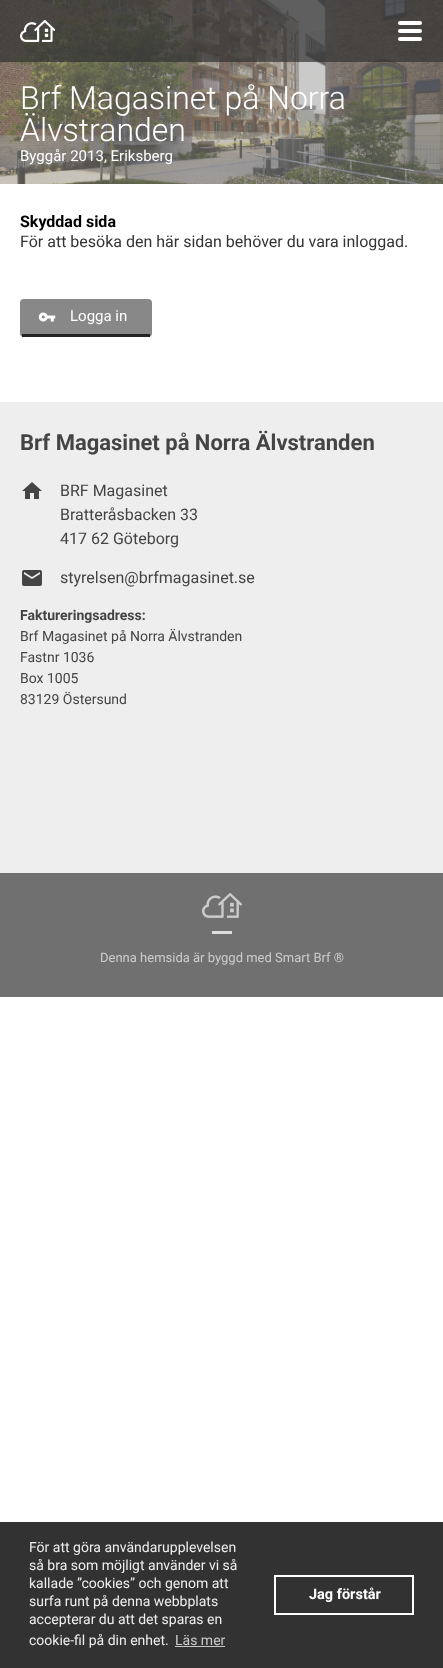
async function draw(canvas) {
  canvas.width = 443
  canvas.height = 1668
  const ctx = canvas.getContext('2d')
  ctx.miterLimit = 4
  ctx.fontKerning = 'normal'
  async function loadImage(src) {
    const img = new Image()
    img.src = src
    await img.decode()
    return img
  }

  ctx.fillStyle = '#fff'
  ctx.fillRect(0, 0, 443, 1668)
  ctx.drawImage(await loadImage('image1.png'), 0, 0, 443, 184)
  ctx.fillStyle = '#323232b3'
  ctx.fillRect(0, 0, 443, 62)
  ctx.drawImage(await loadImage('image0.png'), 20, 20, 35, 22)
  ctx.fillStyle = '#fff'
  ctx.beginPath()
  ctx.roundRect(398, 21, 24, 4, 2)
  ctx.fill()
  ctx.beginPath()
  ctx.roundRect(398, 29, 24, 4, 2)
  ctx.fill()
  ctx.beginPath()
  ctx.roundRect(398, 37, 24, 4, 2)
  ctx.fill()
  ctx.font = '300 32px Roboto'
  ctx.fillText('Brf Magasinet på Norra', 20, 109)
  ctx.fillText('Älvstranden', 20, 141)
  ctx.font = '15px Roboto'
  ctx.fillText('Byggår 2013, Eriksberg', 20, 161)
  ctx.font = 'bold 16px Roboto'
  ctx.fillStyle = '#000'
  ctx.fillText('Skyddad sida', 20, 227)
  ctx.font = '16px Roboto'
  ctx.fillStyle = '#333'
  ctx.fillText('För att besöka den här sidan behöver du vara inloggad.', 20, 247)
  ctx.fillStyle = '#888'
  ctx.beginPath()
  ctx.roundRect(20, 299, 132, 38, 4)
  ctx.fill()
  ctx.drawImage(await loadImage('image2.png'), 38, 312, 18, 10)
  ctx.fillStyle = '#222'
  ctx.fillRect(22, 334, 128, 3)
  ctx.font = '15px Roboto'
  ctx.fillStyle = '#fff'
  ctx.fillText('Logga in', 70, 321)
  ctx.fillStyle = '#eee'
  ctx.fillRect(0, 402, 443, 471)
  ctx.font = 'bold 22px Roboto'
  ctx.fillStyle = '#444'
  ctx.fillText('Brf Magasinet på Norra Älvstranden', 20, 450)
  ctx.drawImage(await loadImage('image3.png'), 22, 482, 20, 17)
  ctx.font = '16px Roboto'
  ctx.fillText('BRF Magasinet', 60, 496)
  ctx.fillText('Bratteråsbacken 33', 60, 520)
  ctx.fillText('417 62 Göteborg', 60, 544)
  ctx.drawImage(await loadImage('image4.png'), 22, 570, 20, 16)
  ctx.fillText('styrelsen@brfmagasinet.se', 60, 583)
  ctx.font = 'bold 14px Roboto'
  ctx.fillText('Faktureringsadress:', 20, 620)
  ctx.font = '14px Roboto'
  ctx.fillText('Brf Magasinet på Norra Älvstranden', 20, 641)
  ctx.fillText('Fastnr 1036', 20, 662)
  ctx.fillText('Box 1005', 20, 683)
  ctx.fillText('83129 Östersund', 20, 704)
  ctx.fillStyle = '#707070'
  ctx.fillRect(0, 873, 443, 124)
  ctx.drawImage(await loadImage('image5.png'), 202, 893, 40, 25)
  ctx.fillStyle = '#ddd'
  ctx.fillRect(212, 931, 20, 3)
  ctx.font = '13px Roboto'
  ctx.fillStyle = '#ccc'
  ctx.fillText('Denna hemsida är byggd med Smart Brf ®', 100, 962)
  ctx.fillStyle = '#323232'
  ctx.fillRect(0, 1522, 443, 146)
  ctx.font = '14px Roboto'
  ctx.fillStyle = '#eee'
  ctx.fillText('För att göra användarupplevelsen', 29, 1552)
  ctx.fillText('så bra som möjligt använder vi så', 29, 1570)
  ctx.fillText('kallade ”cookies” och genom att', 29, 1588)
  ctx.fillText('surfa runt på denna webbplats', 29, 1606)
  ctx.fillText('accepterar du att det sparas en', 29, 1624)
  ctx.fillText('cookie-fil på din enhet.', 29, 1645)
  ctx.fillStyle = '#ccc'
  ctx.fillText('Läs mer', 175, 1645)
  ctx.fillStyle = '#c8c8c8'
  ctx.fillRect(175, 1646, 50, 1)
  ctx.strokeStyle = '#fff'
  ctx.lineWidth = 2
  ctx.strokeRect(275, 1576, 138, 38)
  ctx.font = 'bold 14.5px Roboto'
  ctx.fillStyle = '#fff'
  ctx.fillText('Jag förstår', 309, 1599)
}

draw(document.querySelector('canvas'))
